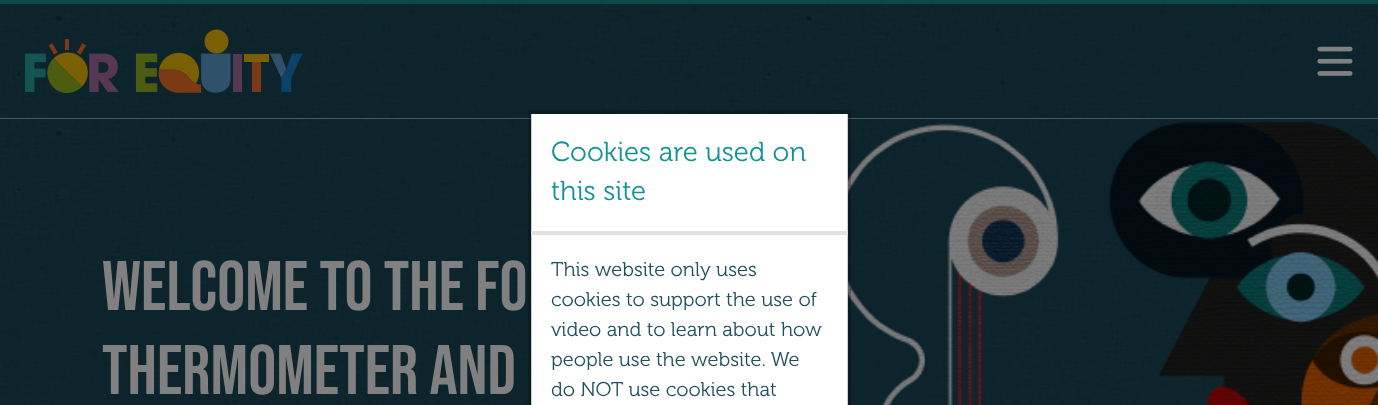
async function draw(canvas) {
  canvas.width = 1378
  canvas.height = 405
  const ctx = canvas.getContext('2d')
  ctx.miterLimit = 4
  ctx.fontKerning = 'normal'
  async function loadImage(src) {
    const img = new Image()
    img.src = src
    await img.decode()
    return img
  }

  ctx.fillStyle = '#fff'
  ctx.fillRect(0, 0, 1378, 405)
  ctx.drawImage(await loadImage('image0.png'), 0, 4, 1378, 115)
  ctx.fillStyle = '#09494a'
  ctx.fillRect(0, 0, 1378, 4)
  ctx.drawImage(await loadImage('image1.png'), 25, 29, 278, 64)
  ctx.drawImage(await loadImage('image2.png'), 1317, 46, 36, 30)
  ctx.drawImage(await loadImage('image3.png'), 0, 119, 1378, 286)
  ctx.font = '70px Bebas Neue'
  ctx.fillStyle = '#808080'
  ctx.fillText('Welcome to the FO', 102, 310)
  ctx.fillText('Thermometer and', 102, 394)
  ctx.drawImage(await loadImage('image4.png'), 848, 121, 530, 284)
  ctx.fillStyle = '#fff'
  ctx.fillRect(531, 114, 317, 291)
  ctx.strokeStyle = '#00000033'
  ctx.lineWidth = 4
  ctx.strokeRect(530, 112, 319, 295)
  ctx.fillStyle = '#dee2e6'
  ctx.fillRect(531, 231, 317, 4)
  ctx.font = '300 27.5px "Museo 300"'
  ctx.fillStyle = '#129294'
  ctx.fillText('Cookies are used on', 551, 161)
  ctx.fillText('this site', 551, 200)
  ctx.font = '300 20px "Museo 300"'
  ctx.fillStyle = '#1e5060'
  ctx.fillText('This website only uses', 551, 276)
  ctx.fillText('cookies to support the use of', 551, 306)
  ctx.fillText('video and to learn about how', 551, 336)
  ctx.fillText('people use the website. We', 551, 366)
  ctx.fillText('do NOT use cookies that', 551, 396)
}

draw(document.querySelector('canvas'))
